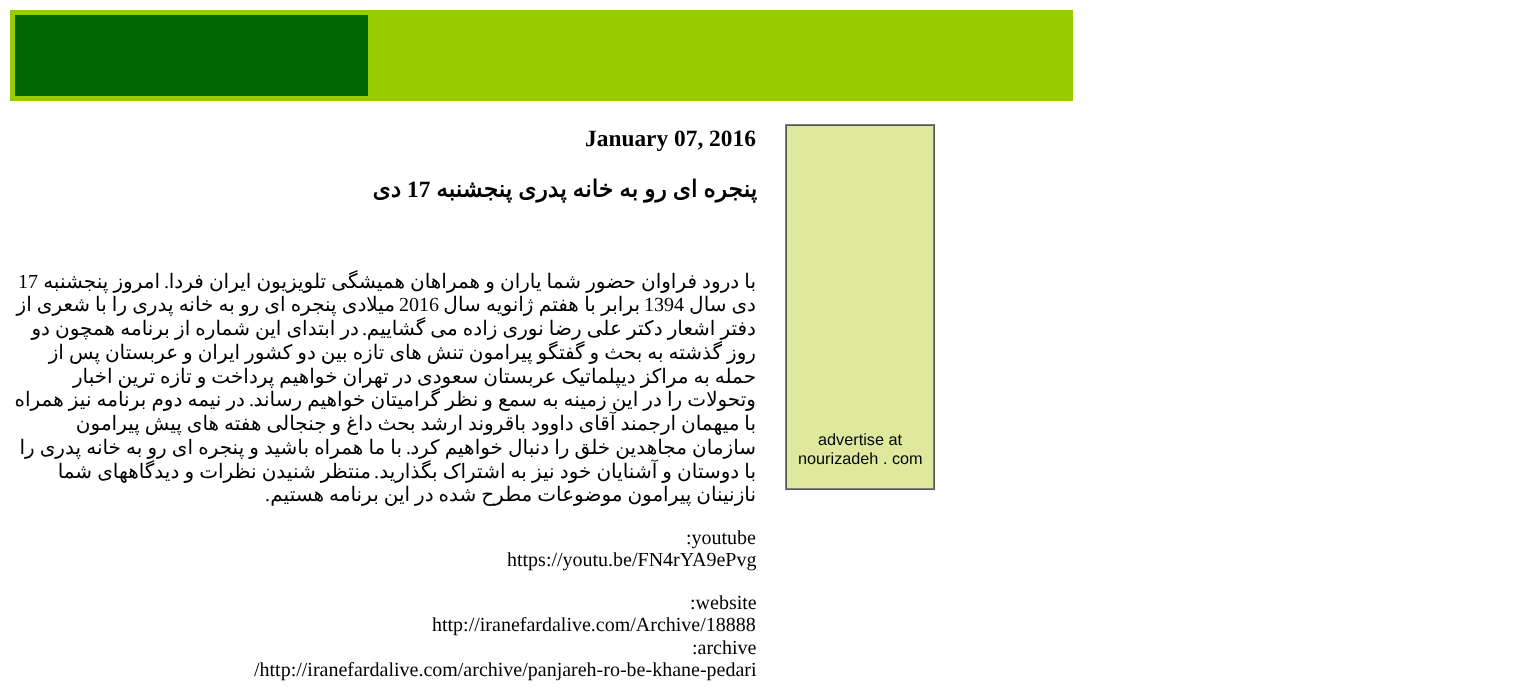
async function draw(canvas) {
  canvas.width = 1529
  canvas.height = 688
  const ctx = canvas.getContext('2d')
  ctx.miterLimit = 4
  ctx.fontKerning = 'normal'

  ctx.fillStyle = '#fff'
  ctx.fillRect(0, 0, 1529, 688)
  ctx.fillStyle = '#9c0'
  ctx.fillRect(10, 10, 1063, 91)
  ctx.fillStyle = '#060'
  ctx.fillRect(15, 15, 353, 81)
  ctx.fillStyle = '#808080'
  ctx.fillRect(785, 124, 150, 1)
  ctx.fillStyle = '#555'
  ctx.fillRect(934, 124, 1, 366)
  ctx.fillRect(785, 489, 150, 1)
  ctx.fillStyle = '#808080'
  ctx.fillRect(785, 124, 1, 366)
  ctx.fillStyle = '#dee99e'
  ctx.fillRect(787, 126, 146, 362)
  ctx.fillStyle = '#555'
  ctx.fillRect(786, 125, 148, 1)
  ctx.fillStyle = '#808080'
  ctx.fillRect(933, 125, 1, 364)
  ctx.fillRect(786, 488, 148, 1)
  ctx.fillStyle = '#555'
  ctx.fillRect(786, 125, 1, 364)
  ctx.font = '16.25px Liberation Sans'
  ctx.fillStyle = '#000'
  ctx.fillText('advertise at', 818, 445)
  ctx.fillText('nourizadeh . com', 798, 464)
  ctx.font = 'bold 23.4px Liberation Serif'
  ctx.fillText('January 07, 2016', 585, 146)
  ctx.wordSpacing = '-1.5px'
  ctx.direction = 'rtl'
  ctx.font = 'bold 23.4px DejaVu Sans'
  ctx.fillText('پنجره ای رو به خانه پدری پنجشنبه', 757, 197)
  ctx.wordSpacing = '0px'
  ctx.direction = 'ltr'
  ctx.font = 'bold 23.4px Liberation Serif'
  ctx.fillText('17', 407, 197)
  ctx.direction = 'rtl'
  ctx.font = 'bold 23.4px DejaVu Sans'
  ctx.fillText('دی', 401, 197)
  ctx.wordSpacing = '-1.25px'
  ctx.font = '20px DejaVu Sans'
  ctx.fillText('با درود فراوان حضور شما یاران و همراهان همیشگی تلویزیون ایران فردا', 756, 288)
  ctx.wordSpacing = '0px'
  ctx.font = '20px Liberation Serif'
  ctx.fillText('.', 169, 288)
  ctx.wordSpacing = '-1.25px'
  ctx.font = '20px DejaVu Sans'
  ctx.fillText('امروز پنجشنبه', 160, 288)
  ctx.wordSpacing = '0px'
  ctx.direction = 'ltr'
  ctx.font = '20px Liberation Serif'
  ctx.fillText('17', 18, 288)
  ctx.wordSpacing = '-1.4px'
  ctx.direction = 'rtl'
  ctx.font = '20px DejaVu Sans'
  ctx.fillText('دی سال', 756, 311)
  ctx.wordSpacing = '0px'
  ctx.direction = 'ltr'
  ctx.font = '20px Liberation Serif'
  ctx.fillText('1394', 644, 311)
  ctx.wordSpacing = '-1px'
  ctx.direction = 'rtl'
  ctx.font = '20px DejaVu Sans'
  ctx.fillText('برابر با هفتم ژانویه سال', 640, 311)
  ctx.wordSpacing = '0px'
  ctx.direction = 'ltr'
  ctx.font = '20px Liberation Serif'
  ctx.fillText('2016', 399, 311)
  ctx.wordSpacing = '-1.25px'
  ctx.direction = 'rtl'
  ctx.font = '20px DejaVu Sans'
  ctx.fillText('میلادی پنجره ای رو به خانه پدری را با شعری از', 395, 311)
  ctx.fillText('دفتر اشعار دکتر علی رضا نوری زاده می گشاییم', 756, 335)
  ctx.wordSpacing = '0px'
  ctx.font = '20px Liberation Serif'
  ctx.fillText('.', 367, 335)
  ctx.wordSpacing = '-1.25px'
  ctx.font = '20px DejaVu Sans'
  ctx.fillText('در ابتدای این شماره از برنامه همچون دو', 359, 335)
  ctx.wordSpacing = '-1.4px'
  ctx.fillText('روز گذشته به بحث و گفتگو پیرامون تنش های تازه بین دو کشور ایران و عربستان پس از', 756, 359)
  ctx.fillText('حمله به مراکز دیپلماتیک عربستان سعودی در تهران خواهیم پرداخت و تازه ترین اخبار', 756, 383)
  ctx.wordSpacing = '-1.25px'
  ctx.fillText('وتحولات را در این زمینه به سمع و نظر گرامیتان خواهیم رساند', 756, 406)
  ctx.wordSpacing = '0px'
  ctx.font = '20px Liberation Serif'
  ctx.fillText('.', 254, 406)
  ctx.wordSpacing = '-1.25px'
  ctx.font = '20px DejaVu Sans'
  ctx.fillText('در نیمه دوم برنامه نیز همراه', 245, 406)
  ctx.wordSpacing = '-1.4px'
  ctx.fillText('با میهمان ارجمند آقای داوود باقروند ارشد بحث داغ و جنجالی هفته های پیش پیرامون', 756, 430)
  ctx.wordSpacing = '-1.25px'
  ctx.fillText('سازمان مجاهدین خلق را دنبال خواهیم کرد', 756, 454)
  ctx.wordSpacing = '0px'
  ctx.font = '20px Liberation Serif'
  ctx.fillText('.', 411, 454)
  ctx.wordSpacing = '-1.25px'
  ctx.font = '20px DejaVu Sans'
  ctx.fillText('با ما همراه باشید و پنجره ای رو به خانه پدری را', 402, 454)
  ctx.fillText('با دوستان و آشنایان خود نیز به اشتراک بگذارید', 756, 478)
  ctx.wordSpacing = '0px'
  ctx.font = '20px Liberation Serif'
  ctx.fillText('.', 379, 478)
  ctx.wordSpacing = '-1.25px'
  ctx.font = '20px DejaVu Sans'
  ctx.fillText('منتظر شنیدن نظرات و دیدگاههای شما', 371, 478)
  ctx.wordSpacing = '-1.4px'
  ctx.fillText('نازنینان پیرامون موضوعات مطرح شده در این برنامه هستیم', 756, 501)
  ctx.wordSpacing = '0px'
  ctx.font = '20px Liberation Serif'
  ctx.fillText('.', 270, 501)
  ctx.direction = 'ltr'
  ctx.fillText(':youtube', 686, 544)
  ctx.fillText('https://youtu.be/FN4rYA9ePvg', 507, 566)
  ctx.fillText(':website', 690, 609)
  ctx.fillText('http://iranefardalive.com/Archive/18888', 432, 631)
  ctx.fillText(':archive', 692, 654)
  ctx.fillText('/http://iranefardalive.com/archive/panjareh-ro-be-khane-pedari', 254, 676)
}

draw(document.querySelector('canvas'))
